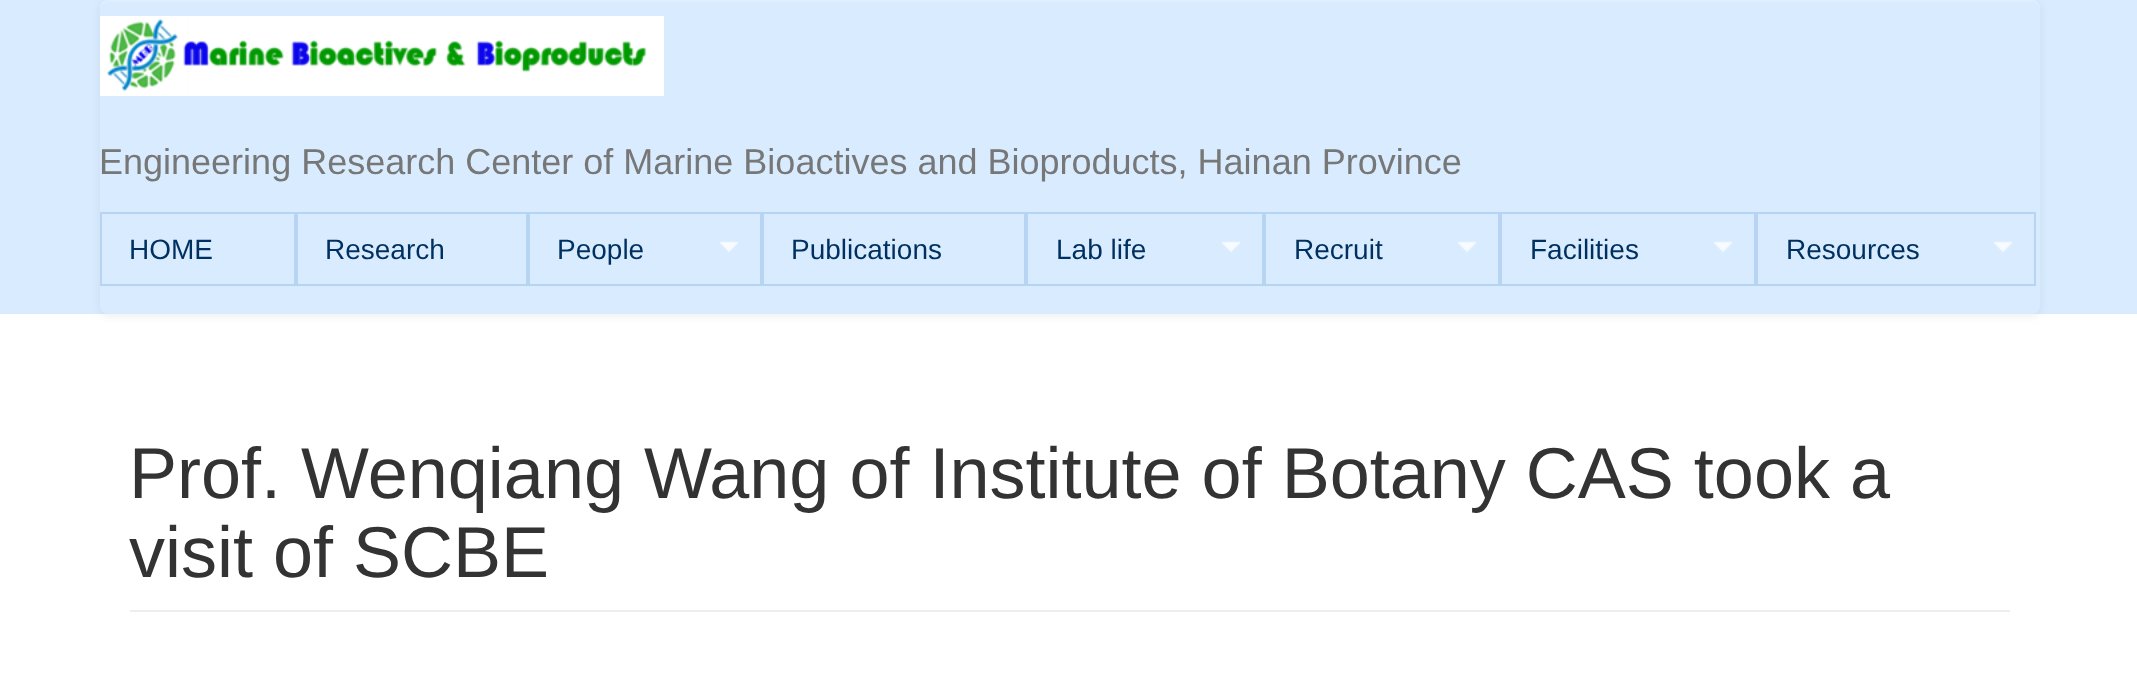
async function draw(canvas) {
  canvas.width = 2137
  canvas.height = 675
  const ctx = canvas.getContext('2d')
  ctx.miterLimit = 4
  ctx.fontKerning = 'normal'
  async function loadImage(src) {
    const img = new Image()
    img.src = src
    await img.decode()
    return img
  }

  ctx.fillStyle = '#fff'
  ctx.fillRect(0, 0, 2137, 675)
  ctx.fillStyle = '#d9ecff'
  ctx.fillRect(0, 0, 2137, 314)
  ctx.fillStyle = '#00000012'
  ctx.filter = 'blur(5px)'
  ctx.beginPath()
  ctx.roundRect(100, 2, 1940, 314, 8)
  ctx.fill()
  ctx.filter = 'none'
  ctx.fillStyle = '#d9ecff'
  ctx.beginPath()
  ctx.roundRect(100, 0, 1940, 314, 8)
  ctx.fill()
  ctx.fillStyle = '#dfefff'
  ctx.beginPath()
  ctx.moveTo(108, 2)
  ctx.lineTo(2032, 2)
  ctx.bezierCurveTo(2036, 2, 2040, 6, 2040, 10)
  ctx.bezierCurveTo(2040, 5, 2038, 0, 2032, 0)
  ctx.lineTo(108, 0)
  ctx.bezierCurveTo(102, 0, 100, 5, 100, 10)
  ctx.bezierCurveTo(100, 6, 104, 2, 108, 2)
  ctx.closePath()
  ctx.fill()
  ctx.drawImage(await loadImage('image0.png'), 100, 16, 564, 80)
  ctx.font = '36px Liberation Sans'
  ctx.fillStyle = '#777'
  ctx.fillText('Engineering Research Center of Marine Bioactives and Bioproducts, Hainan Province', 99, 174)
  ctx.strokeStyle = '#b7d5f3'
  ctx.lineWidth = 2
  ctx.strokeRect(101, 213, 194, 72)
  ctx.font = '28px Liberation Sans'
  ctx.fillStyle = '#00305f'
  ctx.fillText('HOME', 129, 259)
  ctx.strokeRect(297, 213, 230, 72)
  ctx.fillText('Research', 325, 259)
  ctx.strokeRect(529, 213, 232, 72)
  ctx.fillText('People', 557, 259)
  ctx.drawImage(await loadImage('image1.png'), 719, 241, 19, 12)
  ctx.strokeRect(763, 213, 262, 72)
  ctx.fillText('Publications', 791, 259)
  ctx.strokeRect(1027, 213, 236, 72)
  ctx.fillText('Lab life', 1056, 259)
  ctx.drawImage(await loadImage('image1.png'), 1221, 241, 19, 12)
  ctx.strokeRect(1265, 213, 234, 72)
  ctx.fillText('Recruit', 1294, 259)
  ctx.drawImage(await loadImage('image1.png'), 1457, 241, 19, 12)
  ctx.strokeRect(1501, 213, 254, 72)
  ctx.fillText('Facilities', 1530, 259)
  ctx.drawImage(await loadImage('image1.png'), 1713, 241, 19, 12)
  ctx.strokeRect(1757, 213, 278, 72)
  ctx.fillText('Resources', 1786, 259)
  ctx.drawImage(await loadImage('image1.png'), 1993, 241, 19, 12)
  ctx.fillStyle = '#eee'
  ctx.fillRect(130, 610, 1880, 2)
  ctx.font = '72px Liberation Sans'
  ctx.fillStyle = '#333'
  ctx.fillText('Prof. Wenqiang Wang of Institute of Botany CAS took a', 129, 498)
  ctx.fillText('visit of SCBE', 129, 577)
}

draw(document.querySelector('canvas'))
